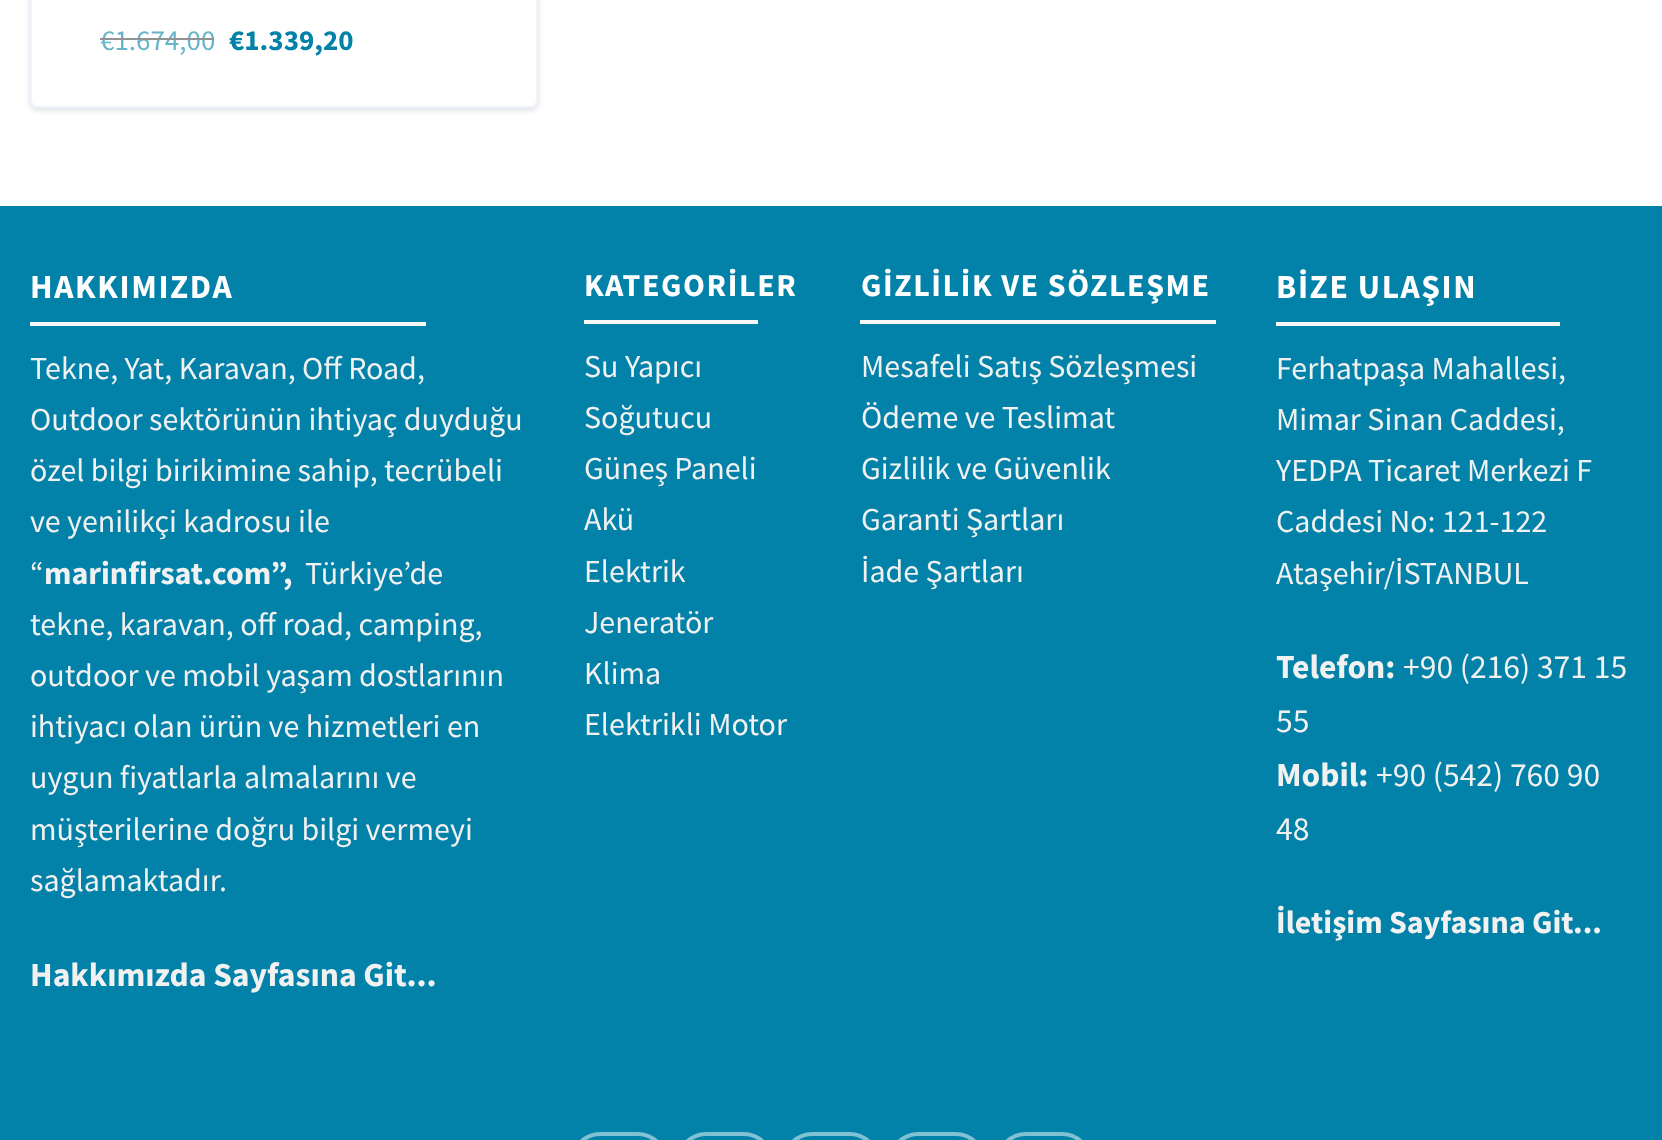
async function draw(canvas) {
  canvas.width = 1662
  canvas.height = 1140
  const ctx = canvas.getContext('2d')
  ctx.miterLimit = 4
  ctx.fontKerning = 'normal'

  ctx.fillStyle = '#fff'
  ctx.fillRect(0, 0, 1662, 1140)
  ctx.fillStyle = '#6b6b6b3d'
  ctx.filter = 'blur(3px)'
  ctx.beginPath()
  ctx.roundRect(30, -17, 508, 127, 8)
  ctx.fill()
  ctx.filter = 'none'
  ctx.fillStyle = '#fff'
  ctx.beginPath()
  ctx.roundRect(31, -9, 506, 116, 7)
  ctx.fill()
  ctx.strokeStyle = '#eef4ff'
  ctx.lineWidth = 2
  ctx.stroke()
  ctx.font = '29px Source Sans Pro'
  ctx.fillStyle = '#67b4cb'
  ctx.fillText('€1.674,00', 100, 50)
  ctx.fillStyle = '#929292'
  ctx.fillRect(100, 38, 114, 2)
  ctx.font = 'bold 29px Source Sans Pro'
  ctx.fillStyle = '#0282a8'
  ctx.fillText('€1.339,20', 229, 50)
  ctx.fillRect(0, 206, 1662, 934)
  ctx.letterSpacing = '1.6px'
  ctx.font = 'bold 33.6px Source Sans Pro'
  ctx.fillStyle = '#fff'
  ctx.fillText('HAKKIMIZDA', 30, 298)
  ctx.fillStyle = '#f7f7f7'
  ctx.fillRect(30, 322, 396, 4)
  ctx.letterSpacing = '0px'
  ctx.font = '32px Source Sans Pro'
  ctx.fillStyle = '#f1f1f1'
  ctx.fillText('Tekne, Yat, Karavan, Off Road,', 30, 379)
  ctx.fillText('Outdoor sektörünün ihtiyaç duyduğu', 30, 430)
  ctx.fillText('özel bilgi birikimine sahip, tecrübeli', 30, 481)
  ctx.fillText('ve yenilikçi kadrosu ile', 30, 532)
  ctx.fillText('“', 30, 584)
  ctx.font = 'bold 32px Source Sans Pro'
  ctx.fillText('marinfirsat.com”,', 44, 584)
  ctx.font = '32px Source Sans Pro'
  ctx.fillText('Türkiye’de', 305, 584)
  ctx.fillText('tekne, karavan, off road, camping,', 30, 635)
  ctx.fillText('outdoor ve mobil yaşam dostlarının', 30, 686)
  ctx.fillText('ihtiyacı olan ürün ve hizmetleri en', 30, 737)
  ctx.fillText('uygun fiyatlarla almalarını ve', 30, 788)
  ctx.fillText('müşterilerine doğru bilgi vermeyi', 30, 840)
  ctx.fillText('sağlamaktadır.', 30, 891)
  ctx.font = 'bold 33.6px Source Sans Pro'
  ctx.fillText('Hakkımızda Sayfasına Git...', 30, 986)
  ctx.letterSpacing = '1.6px'
  ctx.font = 'bold 32px Source Sans Pro'
  ctx.fillStyle = '#fff'
  ctx.fillText('KATEGORİLER', 584, 296)
  ctx.fillStyle = '#f7f7f7'
  ctx.fillRect(584, 320, 174, 4)
  ctx.letterSpacing = '0px'
  ctx.font = '32px Source Sans Pro'
  ctx.fillStyle = '#f1f1f1'
  ctx.fillText('Su Yapıcı', 584, 377)
  ctx.fillText('Soğutucu', 584, 428)
  ctx.fillText('Güneş Paneli', 584, 479)
  ctx.fillText('Akü', 584, 530)
  ctx.fillText('Elektrik', 584, 582)
  ctx.fillText('Jeneratör', 584, 633)
  ctx.fillText('Klima', 584, 684)
  ctx.fillText('Elektrikli Motor', 584, 735)
  ctx.letterSpacing = '1.6px'
  ctx.font = 'bold 32px Source Sans Pro'
  ctx.fillStyle = '#fff'
  ctx.fillText('GİZLİLİK VE SÖZLEŞME', 861, 296)
  ctx.fillStyle = '#f7f7f7'
  ctx.fillRect(860, 320, 356, 4)
  ctx.letterSpacing = '0px'
  ctx.font = '32px Source Sans Pro'
  ctx.fillStyle = '#f1f1f1'
  ctx.fillText('Mesafeli Satış Sözleşmesi', 861, 377)
  ctx.fillText('Ödeme ve Teslimat', 861, 428)
  ctx.fillText('Gizlilik ve Güvenlik', 861, 479)
  ctx.fillText('Garanti Şartları', 861, 530)
  ctx.fillText('İade Şartları', 861, 582)
  ctx.letterSpacing = '1.6px'
  ctx.font = 'bold 33.6px Source Sans Pro'
  ctx.fillStyle = '#fff'
  ctx.fillText('BİZE ULAŞIN', 1276, 298)
  ctx.fillStyle = '#f7f7f7'
  ctx.fillRect(1276, 322, 284, 4)
  ctx.letterSpacing = '0px'
  ctx.font = '32px Source Sans Pro'
  ctx.fillStyle = '#f1f1f1'
  ctx.fillText('Ferhatpaşa Mahallesi,', 1276, 379)
  ctx.fillText('Mimar Sinan Caddesi,', 1276, 430)
  ctx.fillText('YEDPA Ticaret Merkezi F', 1276, 481)
  ctx.fillText('Caddesi No: 121-122', 1276, 532)
  ctx.fillText('Ataşehir/İSTANBUL', 1276, 584)
  ctx.font = 'bold 33.6px Source Sans Pro'
  ctx.fillText('Telefon:', 1276, 678)
  ctx.font = '33.6px Source Sans Pro'
  ctx.fillText('+90 (216) 371 15', 1403, 678)
  ctx.fillText('55', 1276, 732)
  ctx.font = 'bold 33.6px Source Sans Pro'
  ctx.fillText('Mobil:', 1276, 786)
  ctx.font = '33.6px Source Sans Pro'
  ctx.fillText('+90 (542) 760 90', 1376, 786)
  ctx.fillText('48', 1276, 840)
  ctx.font = 'bold 32px Source Sans Pro'
  ctx.fillText('İletişim Sayfasına Git...', 1276, 933)
  ctx.beginPath()
  ctx.roundRect(572, 1134, 94, 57, 47)
  ctx.strokeStyle = '#81c1d4'
  ctx.lineWidth = 4
  ctx.stroke()
  ctx.beginPath()
  ctx.roundRect(678, 1134, 94, 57, 47)
  ctx.stroke()
  ctx.beginPath()
  ctx.roundRect(784, 1134, 94, 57, 47)
  ctx.stroke()
  ctx.beginPath()
  ctx.roundRect(890, 1134, 94, 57, 47)
  ctx.stroke()
  ctx.beginPath()
  ctx.roundRect(998, 1134, 92, 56, 46)
  ctx.stroke()
}

draw(document.querySelector('canvas'))
